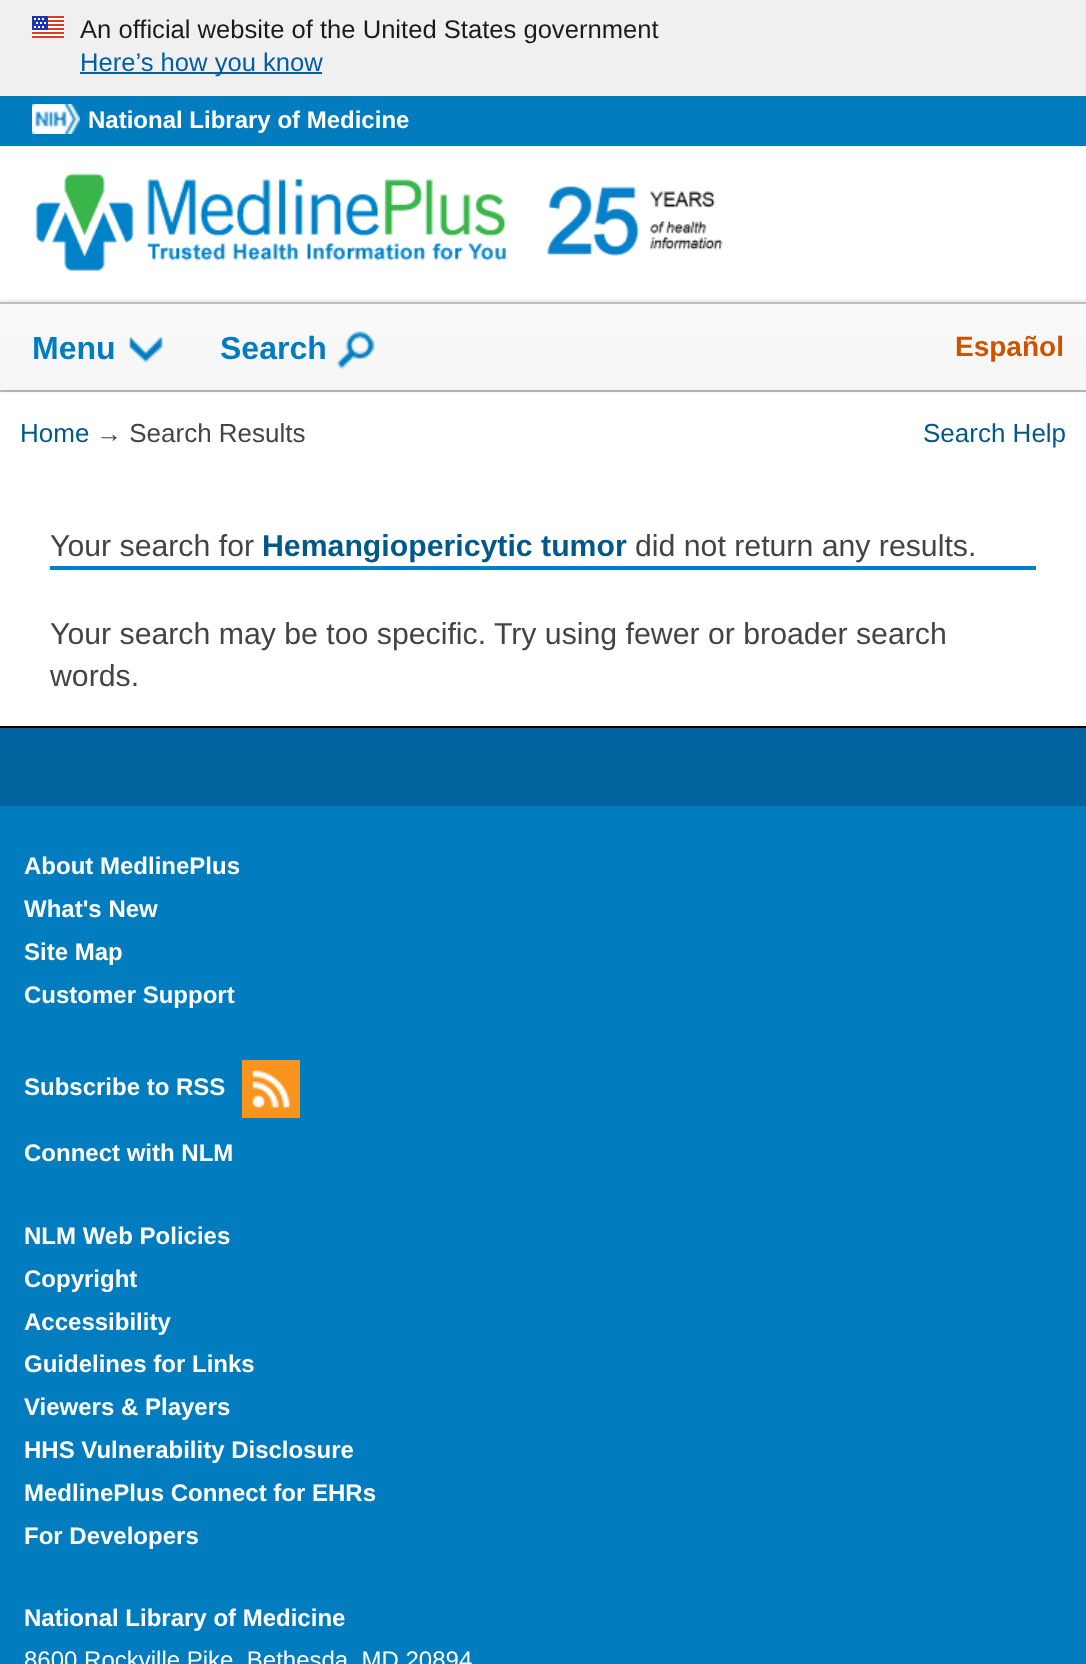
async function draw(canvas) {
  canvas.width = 1086
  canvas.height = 1664
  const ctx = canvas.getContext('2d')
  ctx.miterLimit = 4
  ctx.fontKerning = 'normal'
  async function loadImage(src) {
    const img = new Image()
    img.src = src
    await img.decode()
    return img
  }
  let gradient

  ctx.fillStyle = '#fff'
  ctx.fillRect(0, 0, 1086, 1664)
  ctx.fillStyle = '#f0f0f0'
  ctx.fillRect(0, 0, 1086, 96)
  ctx.drawImage(await loadImage('image0.png'), 32, 16, 32, 22)
  ctx.font = '25.6px Liberation Sans'
  ctx.fillStyle = '#1b1b1b'
  ctx.fillText('An official website of the United States government', 80, 38)
  ctx.fillStyle = '#005ea2'
  ctx.fillRect(80, 72, 242, 2)
  ctx.fillText('Here’s how you know', 80, 71)
  ctx.fillStyle = '#007cbf'
  ctx.fillRect(0, 96, 1086, 50)
  ctx.drawImage(await loadImage('image1.png'), 32, 104, 48, 30)
  ctx.font = 'bold 24px Liberation Sans'
  ctx.fillStyle = '#fff'
  ctx.fillText('National Library of Medicine', 88, 128)
  ctx.drawImage(await loadImage('image2.png'), 35, 173, 688, 98)
  ctx.fillStyle = '#bdbdbd'
  ctx.fillRect(0, 390, 1086, 2)
  ctx.fillStyle = '#00000033'
  ctx.filter = 'blur(2px)'
  ctx.beginPath()
  ctx.rect(0, 302, 1086, 88)
  ctx.fill()
  ctx.filter = 'none'
  gradient = ctx.createLinearGradient(543, 304, 543, 390)
  gradient.addColorStop(0.1, '#fafafa')
  gradient.addColorStop(0.75, '#f6f6f6')
  ctx.fillStyle = gradient
  ctx.fillRect(0, 304, 1086, 86)
  ctx.fillStyle = '#bdbdbd'
  ctx.fillRect(0, 302, 1086, 2)
  ctx.font = 'bold 32px Liberation Sans'
  ctx.fillStyle = '#007cbf'
  ctx.fillText('Menu', 32, 359)
  ctx.drawImage(await loadImage('image3.png'), 129, 336, 34, 27)
  ctx.fillText('Search', 220, 359)
  ctx.drawImage(await loadImage('image4.png'), 337, 331, 38, 38)
  ctx.font = 'bold 28px Liberation Sans'
  ctx.fillStyle = '#cf5200'
  ctx.fillText('Español', 955, 356)
  ctx.font = '26px Liberation Sans'
  ctx.fillStyle = '#005988'
  ctx.fillText('Home', 20, 442)
  ctx.fillStyle = '#444'
  ctx.fillText('→ Search Results', 96, 442)
  ctx.fillStyle = '#005988'
  ctx.fillText('Search Help', 923, 442)
  ctx.fillStyle = '#0082c8'
  ctx.fillRect(50, 566, 986, 4)
  ctx.font = '30.25px Liberation Sans'
  ctx.fillStyle = '#444'
  ctx.fillText('Your search for', 50, 556)
  ctx.font = 'bold 30.25px Liberation Sans'
  ctx.fillStyle = '#005988'
  ctx.fillText('Hemangiopericytic tumor', 262, 556)
  ctx.font = '30.25px Liberation Sans'
  ctx.fillStyle = '#444'
  ctx.fillText('did not return any results.', 635, 556)
  ctx.fillText('Your search may be too specific. Try using fewer or broader search', 50, 644)
  ctx.fillText('words.', 50, 686)
  ctx.fillStyle = '#007cbf'
  ctx.fillRect(0, 806, 1086, 858)
  ctx.fillStyle = '#000'
  ctx.fillRect(0, 726, 1086, 2)
  ctx.fillStyle = '#00639d'
  ctx.fillRect(0, 728, 1086, 78)
  ctx.font = 'bold 24px Liberation Sans'
  ctx.fillStyle = '#fff'
  ctx.fillText('About MedlinePlus', 24, 874)
  ctx.fillText('What\'s New', 24, 917)
  ctx.fillText('Site Map', 24, 960)
  ctx.fillText('Customer Support', 24, 1003)
  ctx.fillText('Subscribe to RSS', 24, 1095)
  ctx.drawImage(await loadImage('image5.png'), 242, 1060, 58, 58)
  ctx.fillText('Connect with NLM', 24, 1161)
  ctx.fillText('NLM Web Policies', 24, 1244)
  ctx.fillText('Copyright', 24, 1287)
  ctx.fillText('Accessibility', 24, 1330)
  ctx.fillText('Guidelines for Links', 24, 1372)
  ctx.fillText('Viewers & Players', 24, 1415)
  ctx.fillText('HHS Vulnerability Disclosure', 24, 1458)
  ctx.fillText('MedlinePlus Connect for EHRs', 24, 1501)
  ctx.fillText('For Developers', 24, 1544)
  ctx.fillText('National Library of Medicine', 24, 1626)
  ctx.font = '24px Liberation Sans'
  ctx.fillText('8600 Rockville Pike, Bethesda, MD 20894', 24, 1668)
}

draw(document.querySelector('canvas'))
